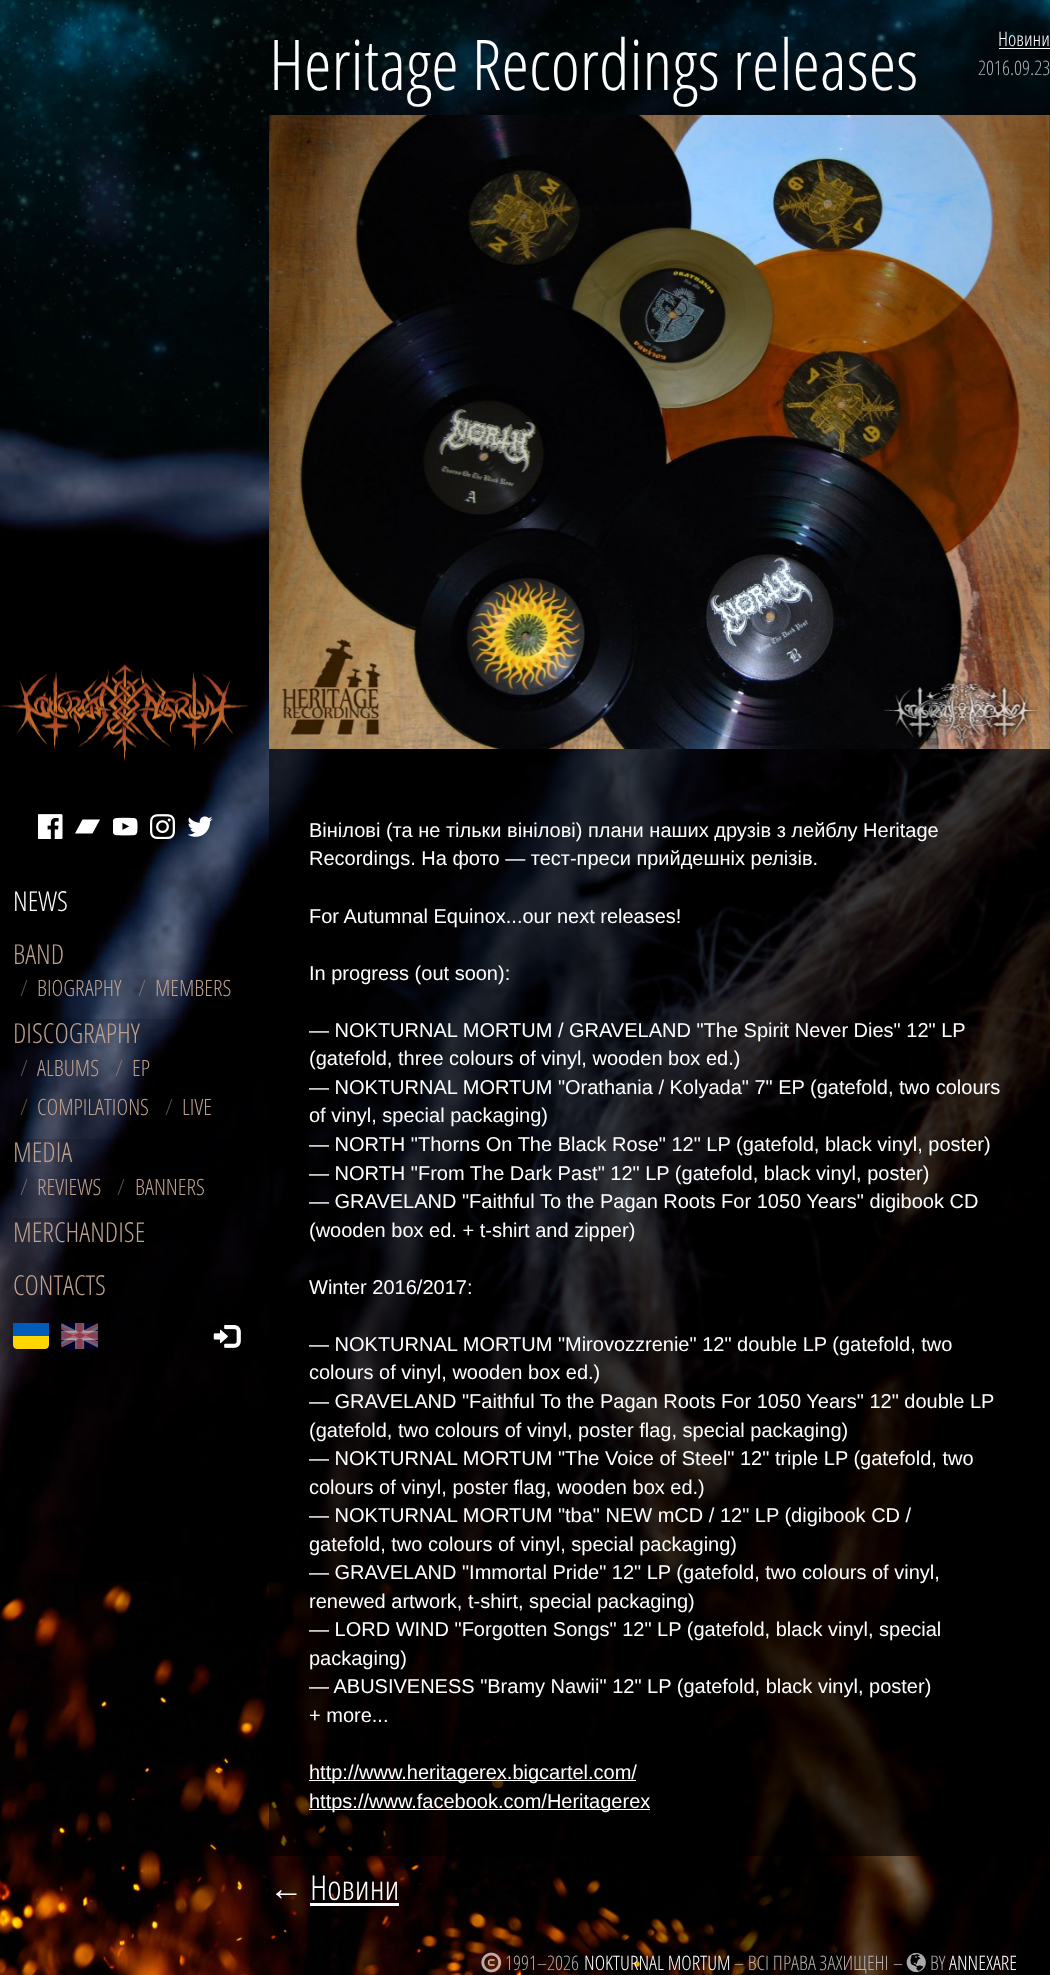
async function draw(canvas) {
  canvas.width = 1050
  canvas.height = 1975
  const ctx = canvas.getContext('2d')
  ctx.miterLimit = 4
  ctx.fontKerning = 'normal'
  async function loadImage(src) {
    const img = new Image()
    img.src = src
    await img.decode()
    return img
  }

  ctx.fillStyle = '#fff'
  ctx.fillRect(0, 0, 1050, 1975)
  ctx.drawImage(await loadImage('image0.png'), 0, 0, 1050, 1975)
  ctx.drawImage(await loadImage('image1.png'), 0, 664, 249, 98)
  ctx.drawImage(await loadImage('image2.png'), 38, 814, 25, 25)
  ctx.beginPath()
  ctx.moveTo(75, 833.5)
  ctx.lineTo(82.5, 819.5)
  ctx.lineTo(100, 819.5)
  ctx.lineTo(92.5, 833.5)
  ctx.closePath()
  ctx.fill('evenodd')
  ctx.drawImage(await loadImage('image3.png'), 113, 817, 25, 19)
  ctx.drawImage(await loadImage('image4.png'), 150, 814, 25, 25)
  ctx.drawImage(await loadImage('image5.png'), 188, 816, 25, 21)
  ctx.font = '300 27.5px Open Sans Condensed'
  ctx.fillText('NEWS', 13, 911)
  ctx.fillStyle = '#bda08e'
  ctx.fillText('BAND', 13, 964)
  ctx.save()
  ctx.beginPath()
  ctx.moveTo(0, 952)
  ctx.lineTo(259, 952)
  ctx.lineTo(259, 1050)
  ctx.lineTo(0, 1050)
  ctx.closePath()
  ctx.moveTo(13, 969)
  ctx.lineTo(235, 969)
  ctx.lineTo(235, 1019)
  ctx.lineTo(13, 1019)
  ctx.closePath()
  ctx.clip('evenodd')
  ctx.fillStyle = '#0000002e'
  ctx.filter = 'blur(7.5px)'
  ctx.beginPath()
  ctx.rect(13, 976, 222, 50)
  ctx.fill()
  ctx.filter = 'none'
  ctx.restore()
  ctx.font = '300 22.5px Open Sans Condensed'
  ctx.fillStyle = '#5f5047'
  ctx.fillText('/', 20, 996)
  ctx.fillStyle = '#bda08e'
  ctx.fillText('BIOGRAPHY', 37, 996)
  ctx.fillStyle = '#796f71'
  ctx.fillText('/', 138, 996)
  ctx.fillStyle = '#bda08e'
  ctx.fillText('MEMBERS', 155, 996)
  ctx.font = '300 27.5px Open Sans Condensed'
  ctx.fillText('DISCOGRAPHY', 13, 1043)
  ctx.save()
  ctx.beginPath()
  ctx.moveTo(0, 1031)
  ctx.lineTo(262, 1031)
  ctx.lineTo(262, 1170)
  ctx.lineTo(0, 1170)
  ctx.closePath()
  ctx.moveTo(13, 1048)
  ctx.lineTo(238, 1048)
  ctx.lineTo(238, 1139)
  ctx.lineTo(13, 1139)
  ctx.closePath()
  ctx.clip('evenodd')
  ctx.fillStyle = '#0000002e'
  ctx.filter = 'blur(7.5px)'
  ctx.beginPath()
  ctx.rect(13, 1055, 225, 91)
  ctx.fill()
  ctx.filter = 'none'
  ctx.restore()
  ctx.font = '300 22.5px Open Sans Condensed'
  ctx.fillStyle = '#62534e'
  ctx.fillText('/', 20, 1076)
  ctx.fillStyle = '#bda08e'
  ctx.fillText('ALBUMS', 37, 1076)
  ctx.fillStyle = '#7f7475'
  ctx.fillText('/', 115, 1076)
  ctx.fillStyle = '#bda08e'
  ctx.fillText('EP', 132, 1076)
  ctx.fillStyle = '#5f5047'
  ctx.fillText('/', 20, 1115)
  ctx.fillStyle = '#bda08e'
  ctx.fillText('COMPILATIONS', 37, 1115)
  ctx.fillStyle = '#5f5047'
  ctx.fillText('/', 165, 1115)
  ctx.fillStyle = '#bda08e'
  ctx.fillText('LIVE', 182, 1115)
  ctx.font = '300 27.5px Open Sans Condensed'
  ctx.fillText('MEDIA', 13, 1162)
  ctx.save()
  ctx.beginPath()
  ctx.moveTo(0, 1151)
  ctx.lineTo(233, 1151)
  ctx.lineTo(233, 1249)
  ctx.lineTo(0, 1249)
  ctx.closePath()
  ctx.moveTo(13, 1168)
  ctx.lineTo(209, 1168)
  ctx.lineTo(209, 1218)
  ctx.lineTo(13, 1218)
  ctx.closePath()
  ctx.clip('evenodd')
  ctx.fillStyle = '#0000002e'
  ctx.filter = 'blur(7.5px)'
  ctx.beginPath()
  ctx.rect(13, 1175, 196, 50)
  ctx.fill()
  ctx.filter = 'none'
  ctx.restore()
  ctx.font = '300 22.5px Open Sans Condensed'
  ctx.fillStyle = '#6c6162'
  ctx.fillText('/', 20, 1195)
  ctx.fillStyle = '#bda08e'
  ctx.fillText('REVIEWS', 37, 1195)
  ctx.fillStyle = '#5f5047'
  ctx.fillText('/', 117, 1195)
  ctx.fillStyle = '#bda08e'
  ctx.fillText('BANNERS', 135, 1195)
  ctx.font = '300 27.5px Open Sans Condensed'
  ctx.fillText('MERCHANDISE', 13, 1242)
  ctx.fillText('CONTACTS', 13, 1295)
  ctx.save()
  ctx.beginPath()
  ctx.roundRect(13, 1321, 36, 28, 4)
  ctx.clip()
  ctx.fillStyle = '#ffd500'
  ctx.beginPath()
  ctx.roundRect(13, 1323, 36, 26, [0, 0, 4, 4])
  ctx.fill()
  ctx.restore()
  ctx.fillStyle = '#005bbb'
  ctx.fillRect(13, 1323, 36, 13)
  ctx.drawImage(await loadImage('image6.png'), 61, 1323, 37, 26)
  ctx.drawImage(await loadImage('image7.png'), 213, 1325, 28, 23)
  ctx.font = '300 70px Open Sans Condensed'
  ctx.fillStyle = '#fff'
  ctx.fillText('Heritage Recordings releases', 269, 90)
  ctx.font = '300 20px Open Sans Condensed'
  ctx.fillText('Новини', 998, 46)
  ctx.fillRect(999, 48, 51, 1)
  ctx.fillStyle = '#ababab'
  ctx.fillText('2016.09.23', 978, 75)
  ctx.drawImage(await loadImage('image8.png'), 269, 115, 781, 634)
  ctx.fillStyle = '#00000099'
  ctx.fillRect(269, 749, 781, 67)
  ctx.fillRect(269, 816, 781, 1040)
  ctx.font = '20px Liberation Sans'
  ctx.fillStyle = '#fff'
  ctx.fillText('Вінілові (та не тільки вінілові) плани наших друзів з лейблу Heritage', 309, 837)
  ctx.fillText('Recordings. На фото — тест-преси прийдешніх релізів.', 309, 865)
  ctx.fillText('For Autumnal Equinox...our next releases!', 309, 923)
  ctx.fillText('In progress (out soon):', 309, 980)
  ctx.fillText('— NOKTURNAL MORTUM / GRAVELAND "The Spirit Never Dies" 12" LP', 309, 1037)
  ctx.fillText('(gatefold, three colours of vinyl, wooden box ed.)', 309, 1065)
  ctx.fillText('— NOKTURNAL MORTUM "Orathania / Kolyada" 7" EP (gatefold, two colours', 309, 1094)
  ctx.fillText('of vinyl, special packaging)', 309, 1122)
  ctx.fillText('— NORTH "Thorns On The Black Rose" 12" LP (gatefold, black vinyl, poster)', 309, 1151)
  ctx.fillText('— NORTH "From The Dark Past" 12" LP (gatefold, black vinyl, poster)', 309, 1180)
  ctx.fillText('— GRAVELAND "Faithful To the Pagan Roots For 1050 Years" digibook CD', 309, 1208)
  ctx.fillText('(wooden box ed. + t-shirt and zipper)', 309, 1237)
  ctx.fillText('Winter 2016/2017:', 309, 1294)
  ctx.fillText('— NOKTURNAL MORTUM "Mirovozzrenie" 12" double LP (gatefold, two', 309, 1351)
  ctx.fillText('colours of vinyl, wooden box ed.)', 309, 1379)
  ctx.fillText('— GRAVELAND "Faithful To the Pagan Roots For 1050 Years" 12" double LP', 309, 1408)
  ctx.fillText('(gatefold, two colours of vinyl, poster flag, special packaging)', 309, 1437)
  ctx.fillText('— NOKTURNAL MORTUM "The Voice of Steel" 12" triple LP (gatefold, two', 309, 1465)
  ctx.fillText('colours of vinyl, poster flag, wooden box ed.)', 309, 1494)
  ctx.fillText('— NOKTURNAL MORTUM "tba" NEW mCD / 12" LP (digibook CD /', 309, 1522)
  ctx.fillText('gatefold, two colours of vinyl, special packaging)', 309, 1551)
  ctx.fillText('— GRAVELAND "Immortal Pride" 12" LP (gatefold, two colours of vinyl,', 309, 1579)
  ctx.fillText('renewed artwork, t-shirt, special packaging)', 309, 1608)
  ctx.fillText('— LORD WIND "Forgotten Songs" 12" LP (gatefold, black vinyl, special', 309, 1636)
  ctx.fillText('packaging)', 309, 1665)
  ctx.fillText('— ABUSIVENESS "Bramy Nawii" 12" LP (gatefold, black vinyl, poster)', 309, 1693)
  ctx.fillText('+ more...', 309, 1722)
  ctx.fillRect(309, 1780, 327, 1)
  ctx.fillText('http://www.heritagerex.bigcartel.com/', 309, 1779)
  ctx.fillRect(309, 1809, 341, 1)
  ctx.fillText('https://www.facebook.com/Heritagerex', 309, 1808)
  ctx.font = '34.5px Liberation Sans'
  ctx.fillText('←', 269, 1900)
  ctx.font = '300 34.5px Open Sans Condensed'
  ctx.fillText('Новини', 310, 1900)
  ctx.fillRect(310, 1903, 89, 3)
  ctx.drawImage(await loadImage('image9.png'), 481, 1952, 21, 21)
  ctx.font = '300 20px Open Sans Condensed'
  ctx.fillStyle = '#ababab'
  ctx.fillText('1991–2026', 505, 1970)
  ctx.fillStyle = '#fff'
  ctx.fillText('NOKTURNAL MORTUM', 584, 1970)
  ctx.fillStyle = '#b3afac'
  ctx.fillText('– ВСІ ПРАВА ЗАХИЩЕНІ', 734, 1970)
  ctx.fillText('–', 893, 1970)
  ctx.drawImage(await loadImage('image10.png'), 906, 1952, 20, 21)
  ctx.fillStyle = '#ababab'
  ctx.fillText('BY', 930, 1970)
  ctx.fillStyle = '#fff'
  ctx.fillText('ANNEXARE', 949, 1970)
}

draw(document.querySelector('canvas'))
